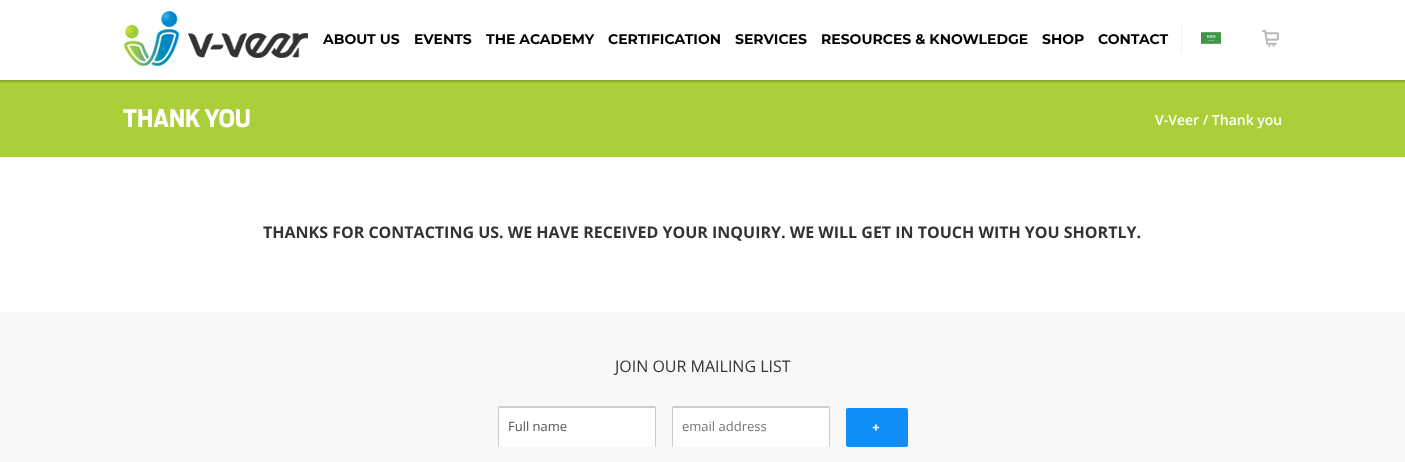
async function draw(canvas) {
  canvas.width = 1405
  canvas.height = 462
  const ctx = canvas.getContext('2d')
  ctx.miterLimit = 4
  ctx.fontKerning = 'normal'
  async function loadImage(src) {
    const img = new Image()
    img.src = src
    await img.decode()
    return img
  }

  ctx.fillStyle = '#fff'
  ctx.fillRect(0, 0, 1405, 462)
  ctx.fillStyle = '#aacf38'
  ctx.fillRect(0, 80, 1405, 77)
  ctx.save()
  ctx.beginPath()
  ctx.rect(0, 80, 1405, 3)
  ctx.clip()
  ctx.fillStyle = '#00000033'
  ctx.filter = 'blur(1px)'
  ctx.beginPath()
  ctx.rect(-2, -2, 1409, 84)
  ctx.fill()
  ctx.filter = 'none'
  ctx.restore()
  ctx.drawImage(await loadImage('image0.png'), 124, 11, 184, 55)
  ctx.font = 'bold 14px Montserrat'
  ctx.fillStyle = '#000'
  ctx.fillText('ABOUT US', 323, 44)
  ctx.fillText('EVENTS', 414, 44)
  ctx.fillText('THE ACADEMY', 486, 44)
  ctx.fillText('CERTIFICATION', 608, 44)
  ctx.fillText('SERVICES', 735, 44)
  ctx.fillText('RESOURCES & KNOWLEDGE', 821, 44)
  ctx.fillText('SHOP', 1042, 44)
  ctx.fillText('CONTACT', 1098, 44)
  ctx.fillStyle = '#efefef'
  ctx.fillRect(1181, 23, 1, 30)
  ctx.drawImage(await loadImage('image1.png'), 1201, 32, 20, 12)
  ctx.drawImage(await loadImage('image2.png'), 1262, 30, 17, 17)
  ctx.font = 'bold 24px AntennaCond'
  ctx.fillStyle = '#fff'
  ctx.fillText('THANK YOU', 123, 127)
  ctx.font = '600 14px Open Sans'
  ctx.fillText('V-Veer / Thank you', 1155, 125)
  ctx.font = 'bold 16px Open Sans'
  ctx.fillStyle = '#333'
  ctx.fillText('THANKS FOR CONTACTING US. WE HAVE RECEIVED YOUR INQUIRY. WE WILL GET IN TOUCH WITH YOU SHORTLY.', 263, 238)
  ctx.fillStyle = '#f8f8f8'
  ctx.fillRect(0, 312, 1405, 150)
  ctx.font = '16px Open Sans'
  ctx.fillStyle = '#333'
  ctx.fillText('JOIN OUR MAILING LIST', 615, 372)
  ctx.fillStyle = '#fff'
  ctx.beginPath()
  ctx.roundRect(498, 406, 158, 41, 2)
  ctx.fill()
  ctx.fillStyle = '#ccc'
  ctx.beginPath()
  ctx.moveTo(500, 408)
  ctx.lineTo(654, 408)
  ctx.bezierCurveTo(655, 408, 655, 408, 655, 409)
  ctx.lineTo(655, 447)
  ctx.bezierCurveTo(656, 446, 656, 446, 656, 445)
  ctx.lineTo(656, 408)
  ctx.bezierCurveTo(656, 407, 655, 406, 654, 406)
  ctx.lineTo(500, 406)
  ctx.bezierCurveTo(499, 406, 498, 407, 498, 408)
  ctx.lineTo(498, 445)
  ctx.bezierCurveTo(498, 446, 498, 446, 499, 447)
  ctx.lineTo(499, 409)
  ctx.bezierCurveTo(499, 408, 499, 408, 500, 408)
  ctx.closePath()
  ctx.fill()
  ctx.font = '13px Open Sans'
  ctx.fillStyle = '#555'
  ctx.fillText('Full name', 508, 431)
  ctx.fillStyle = '#fff'
  ctx.beginPath()
  ctx.roundRect(672, 406, 158, 41, 2)
  ctx.fill()
  ctx.fillStyle = '#ccc'
  ctx.beginPath()
  ctx.moveTo(674, 408)
  ctx.lineTo(828, 408)
  ctx.bezierCurveTo(829, 408, 829, 408, 829, 409)
  ctx.lineTo(829, 447)
  ctx.bezierCurveTo(830, 446, 830, 446, 830, 445)
  ctx.lineTo(830, 408)
  ctx.bezierCurveTo(830, 407, 829, 406, 828, 406)
  ctx.lineTo(674, 406)
  ctx.bezierCurveTo(673, 406, 672, 407, 672, 408)
  ctx.lineTo(672, 445)
  ctx.bezierCurveTo(672, 446, 672, 446, 673, 447)
  ctx.lineTo(673, 409)
  ctx.bezierCurveTo(673, 408, 673, 408, 674, 408)
  ctx.closePath()
  ctx.fill()
  ctx.fillStyle = '#757575'
  ctx.fillText('email address', 682, 431)
  ctx.fillStyle = '#0f8ef7'
  ctx.beginPath()
  ctx.roundRect(846, 408, 62, 39, 2)
  ctx.fill()
  ctx.letterSpacing = '1px'
  ctx.font = 'bold 13px Montserrat'
  ctx.fillStyle = '#fff'
  ctx.fillText('+', 872, 432)
}

draw(document.querySelector('canvas'))
